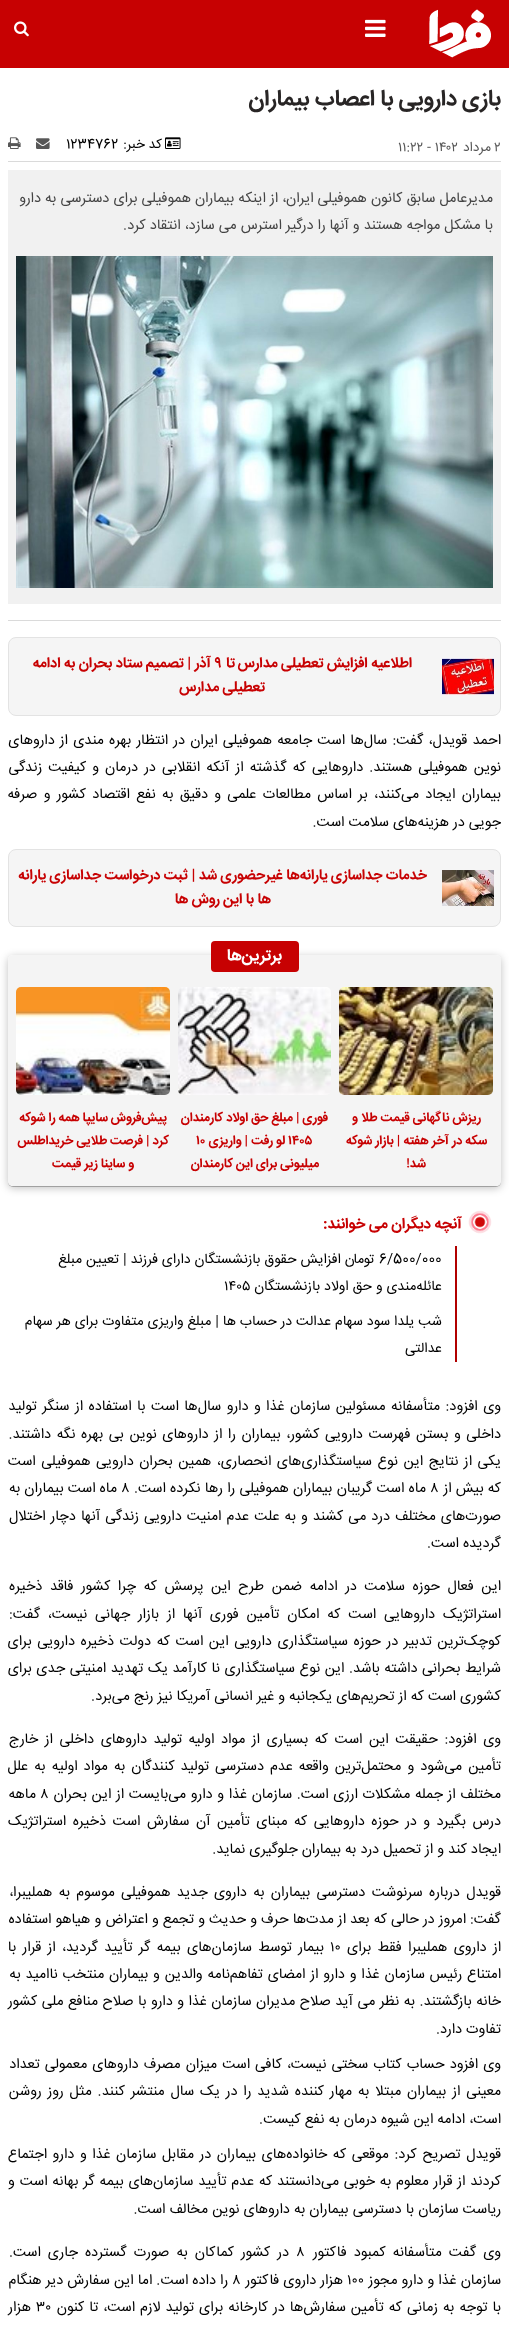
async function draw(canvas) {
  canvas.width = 509
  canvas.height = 2325
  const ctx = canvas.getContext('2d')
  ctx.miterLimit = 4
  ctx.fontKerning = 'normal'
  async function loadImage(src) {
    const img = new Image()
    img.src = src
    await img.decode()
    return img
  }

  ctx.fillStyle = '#fff'
  ctx.fillRect(0, 0, 509, 2325)
  ctx.fillStyle = '#c70102'
  ctx.fillRect(0, 0, 509, 68)
  ctx.drawImage(await loadImage('image0.png'), 429, 9, 62, 49)
  ctx.drawImage(await loadImage('image1.png'), 365, 19, 21, 18)
  ctx.drawImage(await loadImage('image2.png'), 14, 21, 15, 16)
  ctx.direction = 'rtl'
  ctx.font = 'bold 22.4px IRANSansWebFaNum'
  ctx.fillStyle = '#282525'
  ctx.fillText('بازی دارویی با اعصاب بیماران', 501, 105)
  ctx.fillStyle = '#dadada'
  ctx.fillRect(8, 161, 493, 1)
  ctx.direction = 'ltr'
  ctx.font = '13.5px IRANSansWebFaNum'
  ctx.fillStyle = '#575757'
  ctx.fillText('۲', 494, 151)
  ctx.direction = 'rtl'
  ctx.fillText('مرداد', 491, 151)
  ctx.direction = 'ltr'
  ctx.fillText('۱۱:۲۲ - ۱۴۰۲', 398, 151)
  ctx.drawImage(await loadImage('image3.png'), 165, 137, 16, 12)
  ctx.direction = 'rtl'
  ctx.fillStyle = '#000'
  ctx.fillText('کد خبر:', 162, 148)
  ctx.direction = 'ltr'
  ctx.fillText('1234762', 66, 148)
  ctx.drawImage(await loadImage('image4.png'), 36, 138, 14, 11)
  ctx.drawImage(await loadImage('image5.png'), 8, 137, 13, 12)
  ctx.fillStyle = '#dadada'
  ctx.fillRect(8, 620, 493, 1)
  ctx.fillStyle = '#f1f1f1'
  ctx.fillRect(8, 170, 493, 434)
  ctx.direction = 'rtl'
  ctx.font = '14.4px IRANSansWebFaNum'
  ctx.fillStyle = '#444'
  ctx.fillText('مدیرعامل سابق کانون هموفیلی ایران، از اینکه بیماران هموفیلی برای دسترسی به دارو', 493, 202)
  ctx.fillText('با مشکل مواجه هستند و آنها را درگیر استرس می سازد، انتقاد کرد.', 493, 229)
  ctx.drawImage(await loadImage('image6.png'), 16, 256, 477, 332)
  ctx.fillStyle = '#f5f5f5'
  ctx.beginPath()
  ctx.roundRect(8.5, 637.5, 492, 78, 7.5)
  ctx.fill()
  ctx.strokeStyle = '#e3e3e3'
  ctx.stroke()
  ctx.drawImage(await loadImage('image7.png'), 442, 658, 52, 37)
  ctx.font = 'bold 14.4px IRANSansWebFaNum'
  ctx.fillStyle = '#c70102'
  ctx.fillText('اطلاعیه افزایش تعطیلی مدارس', 412, 667)
  ctx.fillText('تا', 235, 667)
  ctx.direction = 'ltr'
  ctx.fillText('۹', 214, 667)
  ctx.direction = 'rtl'
  ctx.fillText('آذر | تصمیم ستاد بحران به ادامه', 211, 667)
  ctx.fillText('تعطیلی مدارس', 265, 691)
  ctx.wordSpacing = '1.1px'
  ctx.font = '14.4px IRANSansWebFaNum'
  ctx.fillStyle = '#000'
  ctx.fillText('احمد قویدل، گفت: سال‌ها است جامعه هموفیلی ایران در انتظار بهره مندی از داروهای', 501, 744)
  ctx.wordSpacing = '2px'
  ctx.fillText('نوین هموفیلی هستند. داروهایی که گذشته از آنکه انقلابی در درمان و کیفیت زندگی', 501, 771)
  ctx.wordSpacing = '2.25px'
  ctx.fillText('بیماران ایجاد می‌کنند، بر اساس مطالعات علمی و دقیق به نفع اقتصاد کشور و صرفه', 501, 798)
  ctx.wordSpacing = '0px'
  ctx.fillText('جویی در هزینه‌های سلامت است.', 501, 826)
  ctx.fillStyle = '#f5f5f5'
  ctx.beginPath()
  ctx.roundRect(8.5, 849.5, 492, 77, 7.5)
  ctx.fill()
  ctx.stroke()
  ctx.drawImage(await loadImage('image8.png'), 442, 870, 52, 36)
  ctx.font = 'bold 14.4px IRANSansWebFaNum'
  ctx.fillStyle = '#c70102'
  ctx.fillText('خدمات جداسازی یارانه‌ها غیرحضوری شد | ثبت درخواست جداسازی یارانه', 427, 879)
  ctx.fillText('ها با این روش ها', 271, 903)
  ctx.save()
  ctx.beginPath()
  ctx.moveTo(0, 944)
  ctx.lineTo(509, 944)
  ctx.lineTo(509, 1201)
  ctx.lineTo(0, 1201)
  ctx.closePath()
  ctx.moveTo(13, 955)
  ctx.lineTo(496, 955)
  ctx.bezierCurveTo(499, 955, 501, 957, 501, 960)
  ctx.lineTo(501, 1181)
  ctx.bezierCurveTo(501, 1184, 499, 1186, 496, 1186)
  ctx.lineTo(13, 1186)
  ctx.bezierCurveTo(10, 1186, 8, 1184, 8, 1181)
  ctx.lineTo(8, 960)
  ctx.bezierCurveTo(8, 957, 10, 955, 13, 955)
  ctx.closePath()
  ctx.clip('evenodd')
  ctx.fillStyle = '#00000040'
  ctx.filter = 'blur(4px)'
  ctx.beginPath()
  ctx.roundRect(8, 957, 493, 231, 5)
  ctx.fill()
  ctx.filter = 'none'
  ctx.restore()
  ctx.save()
  ctx.beginPath()
  ctx.moveTo(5, 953)
  ctx.lineTo(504, 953)
  ctx.lineTo(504, 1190)
  ctx.lineTo(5, 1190)
  ctx.closePath()
  ctx.moveTo(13, 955)
  ctx.lineTo(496, 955)
  ctx.bezierCurveTo(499, 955, 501, 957, 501, 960)
  ctx.lineTo(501, 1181)
  ctx.bezierCurveTo(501, 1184, 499, 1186, 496, 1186)
  ctx.lineTo(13, 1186)
  ctx.bezierCurveTo(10, 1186, 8, 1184, 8, 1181)
  ctx.lineTo(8, 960)
  ctx.bezierCurveTo(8, 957, 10, 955, 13, 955)
  ctx.closePath()
  ctx.clip('evenodd')
  ctx.fillStyle = '#00000040'
  ctx.filter = 'blur(0.5px)'
  ctx.beginPath()
  ctx.roundRect(8, 956, 493, 231, 5)
  ctx.fill()
  ctx.filter = 'none'
  ctx.restore()
  ctx.fillStyle = '#f1f1f1c2'
  ctx.beginPath()
  ctx.roundRect(8, 955, 493, 231, 5)
  ctx.fill()
  ctx.fillStyle = '#c70102'
  ctx.beginPath()
  ctx.roundRect(211, 941, 88, 31, 4)
  ctx.fill()
  ctx.font = 'bold 16px IRANSansWebFaNum'
  ctx.fillStyle = '#fff'
  ctx.fillText('برترین‌ها', 282, 960)
  ctx.drawImage(await loadImage('image9.png'), 339, 987, 154, 108)
  ctx.font = 'bold 12.75px IRANSansWebFaNum'
  ctx.fillStyle = '#c70102'
  ctx.fillText('ریزش ناگهانی قیمت طلا و', 481, 1121)
  ctx.fillText('سکه در آخر هفته | بازار شوکه', 487, 1144)
  ctx.fillText('شد!', 426, 1167)
  ctx.drawImage(await loadImage('image10.png'), 178, 987, 153, 108)
  ctx.fillText('فوری | مبلغ حق اولاد کارمندان', 328, 1121)
  ctx.direction = 'ltr'
  ctx.fillText('۱۴۰۵', 288, 1144)
  ctx.direction = 'rtl'
  ctx.fillText('لو رفت | واریزی', 285, 1144)
  ctx.direction = 'ltr'
  ctx.fillText('۱۰', 196, 1144)
  ctx.direction = 'rtl'
  ctx.fillText('میلیونی برای این کارمندان', 319, 1167)
  ctx.drawImage(await loadImage('image11.png'), 16, 987, 154, 108)
  ctx.fillText('پیش‌فروش سایپا همه را شوکه', 167, 1121)
  ctx.fillText('کرد | فرصت طلایی خریداطلس', 169, 1144)
  ctx.fillText('و ساینا زیر قیمت', 134, 1167)
  ctx.drawImage(await loadImage('image12.png'), 468, 1210, 24, 24)
  ctx.font = 'bold 15px IRANSansWebFaNum'
  ctx.fillText('آنچه دیگران می خوانند:', 462, 1228)
  ctx.fillStyle = '#b10000'
  ctx.fillRect(455, 1246, 2, 116)
  ctx.direction = 'ltr'
  ctx.font = '14px IRANSansWebFaNum'
  ctx.fillStyle = '#000'
  ctx.fillText('6/500/000', 379, 1263)
  ctx.direction = 'rtl'
  ctx.fillText('تومان افزایش حقوق بازنشستگان دارای فرزند | تعیین مبلغ', 375, 1263)
  ctx.fillText('عائله‌مندی و حق اولاد بازنشستگان', 442, 1290)
  ctx.direction = 'ltr'
  ctx.fillText('۱۴۰۵', 224, 1290)
  ctx.direction = 'rtl'
  ctx.fillText('شب یلدا سود سهام عدالت در حساب ها | مبلغ واریزی متفاوت برای هر سهام', 442, 1325)
  ctx.fillText('عدالتی', 442, 1352)
  ctx.wordSpacing = '1.4px'
  ctx.font = '14.4px IRANSansWebFaNum'
  ctx.fillText('وی افزود: متأسفانه مسئولین سازمان غذا و دارو سال‌ها است با استفاده از سنگر تولید', 501, 1410)
  ctx.wordSpacing = '1.5px'
  ctx.fillText('داخلی و بستن فهرست دارویی کشور، بیماران را از داروهای نوین بی بهره نگه داشتند.', 501, 1438)
  ctx.wordSpacing = '1.4px'
  ctx.fillText('یکی از نتایج این نوع سیاستگذاری‌های انحصاری، همین بحران دارویی هموفیلی است', 501, 1465)
  ctx.wordSpacing = '0px'
  ctx.fillText('که بیش از', 501, 1492)
  ctx.direction = 'ltr'
  ctx.fillText('۸', 430, 1492)
  ctx.wordSpacing = '0.25px'
  ctx.direction = 'rtl'
  ctx.fillText('ماه است گریبان بیماران هموفیلی را رها نکرده است.', 426, 1492)
  ctx.wordSpacing = '0px'
  ctx.direction = 'ltr'
  ctx.fillText('۸', 121, 1492)
  ctx.direction = 'rtl'
  ctx.fillText('ماه است بیماران به', 117, 1492)
  ctx.wordSpacing = '1px'
  ctx.fillText('صورت‌های مختلف درد می کشند و به علت عدم امنیت دارویی زندگی آنها دچار اختلال', 501, 1520)
  ctx.wordSpacing = '0px'
  ctx.fillText('گردیده است.', 501, 1547)
  ctx.wordSpacing = '3.5px'
  ctx.fillText('این فعال حوزه سلامت در ادامه ضمن طرح این پرسش که چرا کشور فاقد ذخیره', 501, 1590)
  ctx.wordSpacing = '3.75px'
  ctx.fillText('استراتژیک داروهایی است که امکان تأمین فوری آنها از بازار جهانی نیست، گفت:', 501, 1618)
  ctx.wordSpacing = '1.5px'
  ctx.fillText('کوچک‌ترین تدبیر در حوزه سیاستگذاری دارویی این است که دولت ذخیره دارویی برای', 501, 1645)
  ctx.wordSpacing = '0.5px'
  ctx.fillText('شرایط بحرانی داشته باشد. این نوع سیاستگذاری نا کارآمد یک تهدید امنیتی جدی برای', 501, 1672)
  ctx.wordSpacing = '0px'
  ctx.fillText('کشوری است که از تحریم‌های یکجانبه و غیر انسانی آمریکا نیز رنج می‌برد.', 501, 1700)
  ctx.wordSpacing = '2.5px'
  ctx.fillText('وی افزود: حقیقت این است که بسیاری از مواد اولیه تولید داروهای داخلی از خارج', 501, 1743)
  ctx.wordSpacing = '2px'
  ctx.fillText('تأمین می‌شود و محتمل‌ترین واقعه عدم دسترسی تولید کنندگان به مواد اولیه به علل', 501, 1770)
  ctx.wordSpacing = '0.6px'
  ctx.fillText('مختلف از جمله مشکلات ارزی است. سازمان غذا و دارو می‌بایست از این بحران', 501, 1798)
  ctx.wordSpacing = '0px'
  ctx.direction = 'ltr'
  ctx.fillText('۸', 40, 1798)
  ctx.direction = 'rtl'
  ctx.fillText('ماهه', 36, 1798)
  ctx.wordSpacing = '2.4px'
  ctx.fillText('درس بگیرد و در حوزه داروهایی که مبنای تأمین آن سفارش است ذخیره استراتژیک', 501, 1825)
  ctx.wordSpacing = '0px'
  ctx.fillText('ایجاد کند و از تحمیل درد به بیماران جلوگیری نماید.', 501, 1853)
  ctx.wordSpacing = '2.25px'
  ctx.fillText('قویدل درباره سرنوشت دسترسی بیماران به داروی جدید هموفیلی موسوم به هملیبرا،', 501, 1896)
  ctx.wordSpacing = '0px'
  ctx.fillText('گفت: امروز در حالی که بعد از مدت‌ها حرف و حدیث و تجمع و اعتراض و هیاهو استفاده', 501, 1923)
  ctx.wordSpacing = '2.25px'
  ctx.fillText('از داروی هملیبرا فقط برای', 501, 1951)
  ctx.wordSpacing = '0px'
  ctx.direction = 'ltr'
  ctx.fillText('۱۰', 330, 1951)
  ctx.wordSpacing = '2.25px'
  ctx.direction = 'rtl'
  ctx.fillText('بیمار توسط سازمان‌های بیمه گر تأیید گردید، از قرار با', 324, 1951)
  ctx.wordSpacing = '0.75px'
  ctx.fillText('امتناع رئیس سازمان غذا و دارو از امضای تفاهم‌نامه والدین و بیماران منتخب ناامید به', 501, 1978)
  ctx.wordSpacing = '0.4px'
  ctx.fillText('خانه بازگشتند. به نظر می آید صلاح مدیران سازمان غذا و دارو با صلاح منافع ملی کشور', 501, 2005)
  ctx.wordSpacing = '0px'
  ctx.fillText('تفاوت دارد.', 501, 2033)
  ctx.wordSpacing = '1px'
  ctx.fillText('وی افزود حساب کتاب سختی نیست، کافی است میزان مصرف داروهای معمولی تعداد', 501, 2068)
  ctx.wordSpacing = '1.8px'
  ctx.fillText('معینی از بیماران مبتلا به مهار کننده شدید را در یک سال منتشر کنند. مثل روز روشن', 501, 2095)
  ctx.wordSpacing = '0px'
  ctx.fillText('است، ادامه این شیوه درمان به نفع کیست.', 501, 2123)
  ctx.wordSpacing = '1.5px'
  ctx.fillText('قویدل تصریح کرد: موقعی که خانواده‌های بیماران در مقابل سازمان غذا و دارو اجتماع', 501, 2158)
  ctx.wordSpacing = '0.75px'
  ctx.fillText('کردند از قرار معلوم به خوبی می‌دانستند که عدم تأیید سازمان‌های بیمه گر بهانه است و', 501, 2185)
  ctx.wordSpacing = '0px'
  ctx.fillText('ریاست سازمان با دسترسی بیماران به داروهای نوین مخالف است.', 501, 2213)
  ctx.wordSpacing = '3px'
  ctx.fillText('وی گفت متأسفانه کمبود فاکتور', 501, 2256)
  ctx.wordSpacing = '0px'
  ctx.direction = 'ltr'
  ctx.fillText('۸', 296, 2256)
  ctx.wordSpacing = '3px'
  ctx.direction = 'rtl'
  ctx.fillText('در کشور کماکان به صورت گسترده جاری است.', 289, 2256)
  ctx.wordSpacing = '0px'
  ctx.fillText('سازمان غذا و دارو مجوز', 501, 2284)
  ctx.direction = 'ltr'
  ctx.fillText('۱۰۰', 347, 2284)
  ctx.direction = 'rtl'
  ctx.fillText('هزار داروی فاکتور', 343, 2284)
  ctx.direction = 'ltr'
  ctx.fillText('۸', 232, 2284)
  ctx.direction = 'rtl'
  ctx.fillText('را داده است. اما این سفارش دیر هنگام', 228, 2284)
  ctx.wordSpacing = '1px'
  ctx.fillText('با توجه به زمانی که تأمین سفارش‌ها در کارخانه برای تولید لازم است، تا کنون', 501, 2311)
  ctx.wordSpacing = '0px'
  ctx.direction = 'ltr'
  ctx.fillText('۳۰', 36, 2311)
  ctx.direction = 'rtl'
  ctx.fillText('هزار', 31, 2311)
}

draw(document.querySelector('canvas'))
